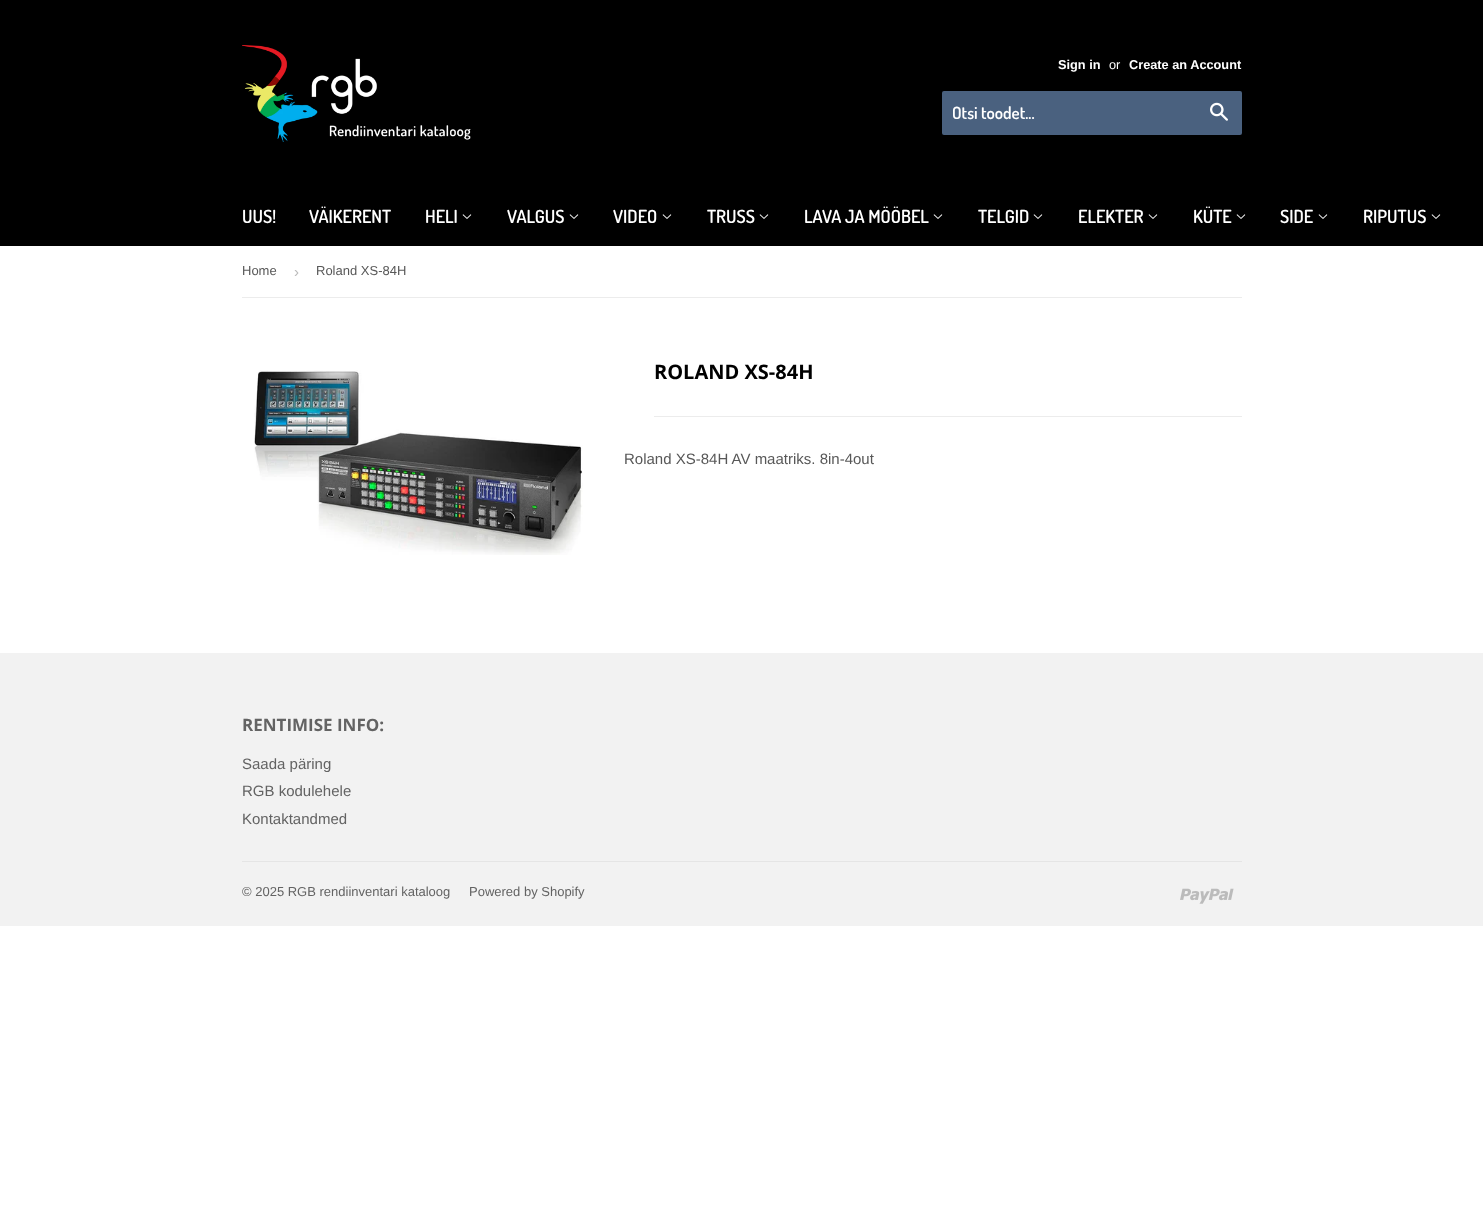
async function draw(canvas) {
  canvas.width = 1483
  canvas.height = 1210
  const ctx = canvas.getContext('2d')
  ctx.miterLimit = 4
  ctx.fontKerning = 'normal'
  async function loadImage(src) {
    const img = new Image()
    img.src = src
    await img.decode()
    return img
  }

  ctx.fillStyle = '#fff'
  ctx.fillRect(0, 0, 1483, 1210)
  ctx.fillStyle = '#000'
  ctx.fillRect(0, 0, 1483, 246)
  ctx.drawImage(await loadImage('image0.png'), 242, 45, 229, 97)
  ctx.font = 'bold 12.75px Liberation Sans'
  ctx.fillStyle = '#fff'
  ctx.fillText('Sign in', 1058, 69)
  ctx.font = '12.75px Liberation Sans'
  ctx.fillText('or', 1109, 69)
  ctx.font = 'bold 12.75px Liberation Sans'
  ctx.fillText('Create an Account', 1129, 69)
  ctx.fillStyle = '#4a617f'
  ctx.beginPath()
  ctx.roundRect(942, 91, 300, 44, 2)
  ctx.fill()
  ctx.font = '600 17px Dosis'
  ctx.fillStyle = '#fff'
  ctx.fillText('Otsi toodet...', 952, 119)
  ctx.drawImage(await loadImage('image1.png'), 1210, 102, 18, 19)
  ctx.font = '600 18px Dosis'
  ctx.fillText('UUS!', 242, 223)
  ctx.fillText('VÄIKERENT', 309, 223)
  ctx.fillText('HELI', 425, 223)
  ctx.drawImage(await loadImage('image2.png'), 462, 214, 10, 5)
  ctx.fillText('VALGUS', 507, 223)
  ctx.drawImage(await loadImage('image2.png'), 569, 214, 10, 5)
  ctx.fillText('VIDEO', 613, 223)
  ctx.drawImage(await loadImage('image2.png'), 662, 214, 10, 5)
  ctx.fillText('TRUSS', 707, 223)
  ctx.drawImage(await loadImage('image2.png'), 759, 214, 10, 5)
  ctx.fillText('LAVA JA MÖÖBEL', 804, 223)
  ctx.drawImage(await loadImage('image2.png'), 933, 214, 10, 5)
  ctx.fillText('TELGID', 978, 223)
  ctx.drawImage(await loadImage('image2.png'), 1033, 214, 10, 5)
  ctx.fillText('ELEKTER', 1078, 223)
  ctx.drawImage(await loadImage('image2.png'), 1148, 214, 10, 5)
  ctx.fillText('KÜTE', 1193, 223)
  ctx.drawImage(await loadImage('image2.png'), 1236, 214, 10, 5)
  ctx.fillText('SIDE', 1280, 223)
  ctx.drawImage(await loadImage('image2.png'), 1318, 214, 10, 5)
  ctx.fillText('RIPUTUS', 1363, 223)
  ctx.drawImage(await loadImage('image2.png'), 1431, 214, 10, 5)
  ctx.fillStyle = '#ececec'
  ctx.fillRect(242, 297, 1000, 1)
  ctx.font = '13px Liberation Sans'
  ctx.fillStyle = '#585858'
  ctx.fillText('Home', 242, 275)
  ctx.font = '15px Liberation Sans'
  ctx.fillStyle = '#bbb'
  ctx.fillText('›', 294, 277)
  ctx.font = '13px Liberation Sans'
  ctx.fillStyle = '#585858'
  ctx.fillText('Roland XS-84H', 316, 275)
  ctx.drawImage(await loadImage('image3.png'), 254, 370, 329, 185)
  ctx.font = 'bold 20px Open Sans'
  ctx.fillStyle = '#000'
  ctx.fillText('ROLAND XS-84H', 654, 379)
  ctx.fillStyle = '#ececec'
  ctx.fillRect(654, 416, 588, 1)
  ctx.font = '15px Liberation Sans'
  ctx.fillStyle = '#585858'
  ctx.fillText('Roland XS-84H AV maatriks. 8in-4out', 624, 464)
  ctx.fillStyle = '#f2f2f2'
  ctx.fillRect(0, 653, 1483, 273)
  ctx.font = 'bold 17px Open Sans'
  ctx.fillStyle = '#636363'
  ctx.fillText('RENTIMISE INFO:', 242, 731)
  ctx.font = '15px Liberation Sans'
  ctx.fillText('Saada päring', 242, 769)
  ctx.fillText('RGB kodulehele', 242, 796)
  ctx.fillText('Kontaktandmed', 242, 824)
  ctx.fillStyle = '#e5e5e5'
  ctx.fillRect(242, 861, 1000, 1)
  ctx.font = '13px Liberation Sans'
  ctx.fillStyle = '#636363'
  ctx.fillText('© 2025 RGB rendiinventari kataloog', 242, 896)
  ctx.fillText('Powered by Shopify', 469, 896)
  ctx.drawImage(await loadImage('image4.png'), 1180, 888, 54, 16)
}

draw(document.querySelector('canvas'))
